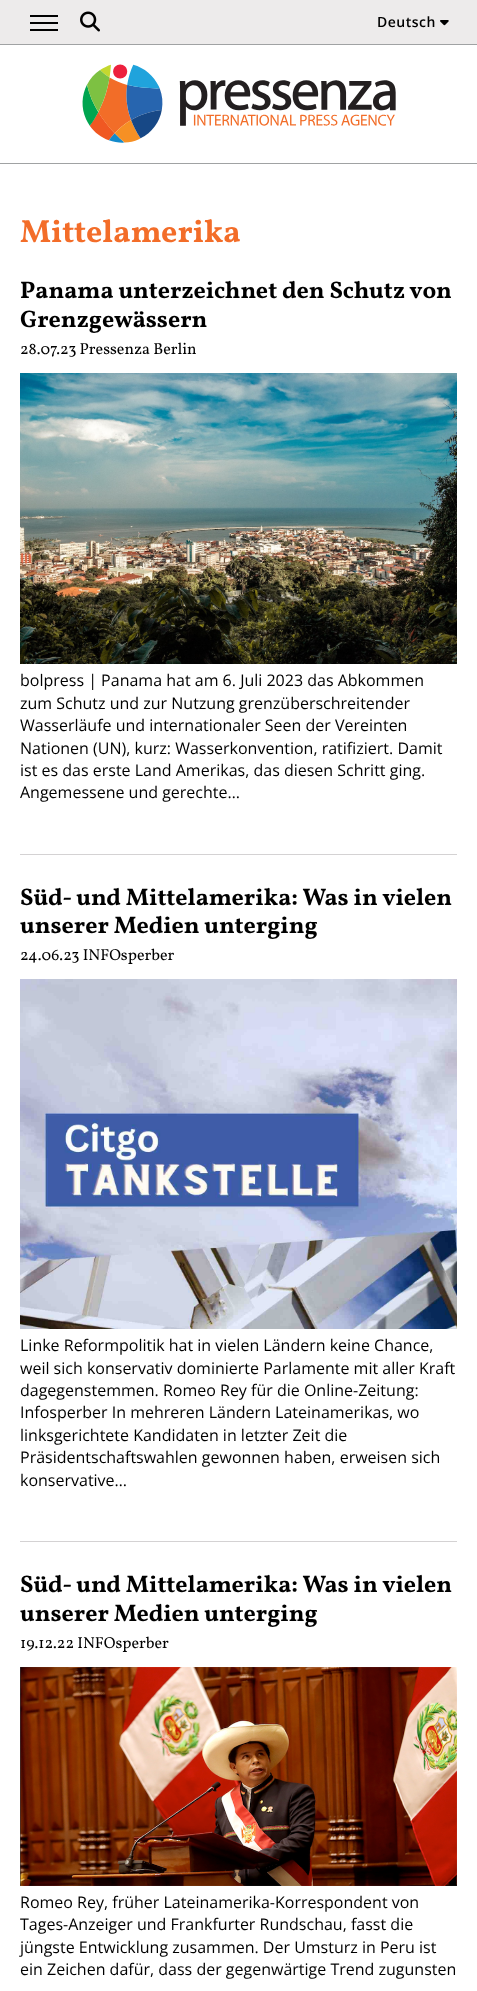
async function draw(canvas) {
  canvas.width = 477
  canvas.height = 1991
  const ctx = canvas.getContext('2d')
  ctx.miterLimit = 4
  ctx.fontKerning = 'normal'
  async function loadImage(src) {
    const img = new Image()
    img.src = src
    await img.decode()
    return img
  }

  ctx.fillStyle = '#fff'
  ctx.fillRect(0, 0, 477, 1991)
  ctx.fillStyle = '#edebeb'
  ctx.fillRect(0, 0, 477, 44)
  ctx.fillStyle = '#a0a2a3'
  ctx.fillRect(0, 44, 477, 1)
  ctx.fillStyle = '#000'
  ctx.fillRect(30, 15, 28, 2)
  ctx.fillRect(30, 22, 28, 2)
  ctx.fillRect(30, 29, 28, 2)
  ctx.drawImage(await loadImage('image0.png'), 80, 11, 20, 21)
  ctx.letterSpacing = '0.5px'
  ctx.font = '600 14px Open Sans'
  ctx.fillText('Deutsch', 377, 27)
  ctx.drawImage(await loadImage('image1.png'), 440, 20, 9, 6)
  ctx.fillStyle = '#a0a2a3'
  ctx.fillRect(0, 163, 477, 1)
  ctx.drawImage(await loadImage('image2.png'), 82, 64, 314, 79)
  ctx.letterSpacing = '0px'
  ctx.font = 'bold 32px Vollkorn'
  ctx.fillStyle = '#f36d29'
  ctx.fillText('Mittelamerika', 20, 242)
  ctx.fillStyle = '#d4d2d3'
  ctx.fillRect(20, 854, 437, 1)
  ctx.font = 'bold 24px Vollkorn'
  ctx.fillStyle = '#000'
  ctx.fillText('Panama unterzeichnet den Schutz von', 20, 298)
  ctx.fillText('Grenzgewässern', 20, 327)
  ctx.font = '16px Vollkorn'
  ctx.fillText('28.07.23 Pressenza Berlin', 20, 354)
  ctx.drawImage(await loadImage('image3.png'), 20, 373, 437, 291)
  ctx.font = '16px Open Sans'
  ctx.fillText('bolpress | Panama hat am 6. Juli 2023 das Abkommen', 20, 686)
  ctx.fillText('zum Schutz und zur Nutzung grenzüberschreitender', 20, 709)
  ctx.fillText('Wasserläufe und internationaler Seen der Vereinten', 20, 731)
  ctx.fillText('Nationen (UN), kurz: Wasserkonvention, ratifiziert. Damit', 20, 754)
  ctx.fillText('ist es das erste Land Amerikas, das diesen Schritt ging.', 20, 776)
  ctx.fillText('Angemessene und gerechte…', 20, 798)
  ctx.fillStyle = '#d4d2d3'
  ctx.fillRect(20, 1541, 437, 1)
  ctx.font = 'bold 24px Vollkorn'
  ctx.fillStyle = '#000'
  ctx.fillText('Süd- und Mittelamerika: Was in vielen', 20, 905)
  ctx.fillText('unserer Medien unterging', 20, 933)
  ctx.font = '16px Vollkorn'
  ctx.fillText('24.06.23 INFOsperber', 20, 960)
  ctx.drawImage(await loadImage('image4.png'), 20, 979, 437, 350)
  ctx.font = '16px Open Sans'
  ctx.fillText('Linke Reformpolitik hat in vielen Ländern keine Chance,', 20, 1351)
  ctx.fillText('weil sich konservativ dominierte Parlamente mit aller Kraft', 20, 1374)
  ctx.fillText('dagegenstemmen. Romeo Rey für die Online-Zeitung:', 20, 1396)
  ctx.fillText('Infosperber In mehreren Ländern Lateinamerikas, wo', 20, 1418)
  ctx.fillText('linksgerichtete Kandidaten in letzter Zeit die', 20, 1441)
  ctx.fillText('Präsidentschaftswahlen gewonnen haben, erweisen sich', 20, 1463)
  ctx.fillText('konservative…', 20, 1486)
  ctx.font = 'bold 24px Vollkorn'
  ctx.fillText('Süd- und Mittelamerika: Was in vielen', 20, 1592)
  ctx.fillText('unserer Medien unterging', 20, 1621)
  ctx.font = '16px Vollkorn'
  ctx.fillText('19.12.22 INFOsperber', 20, 1648)
  ctx.drawImage(await loadImage('image5.png'), 20, 1667, 437, 219)
  ctx.font = '16px Open Sans'
  ctx.fillText('Romeo Rey, früher Lateinamerika-Korrespondent von', 20, 1908)
  ctx.fillText('Tages-Anzeiger und Frankfurter Rundschau, fasst die', 20, 1930)
  ctx.fillText('jüngste Entwicklung zusammen. Der Umsturz in Peru ist', 20, 1953)
  ctx.fillText('ein Zeichen dafür, dass der gegenwärtige Trend zugunsten', 20, 1975)
}

draw(document.querySelector('canvas'))
